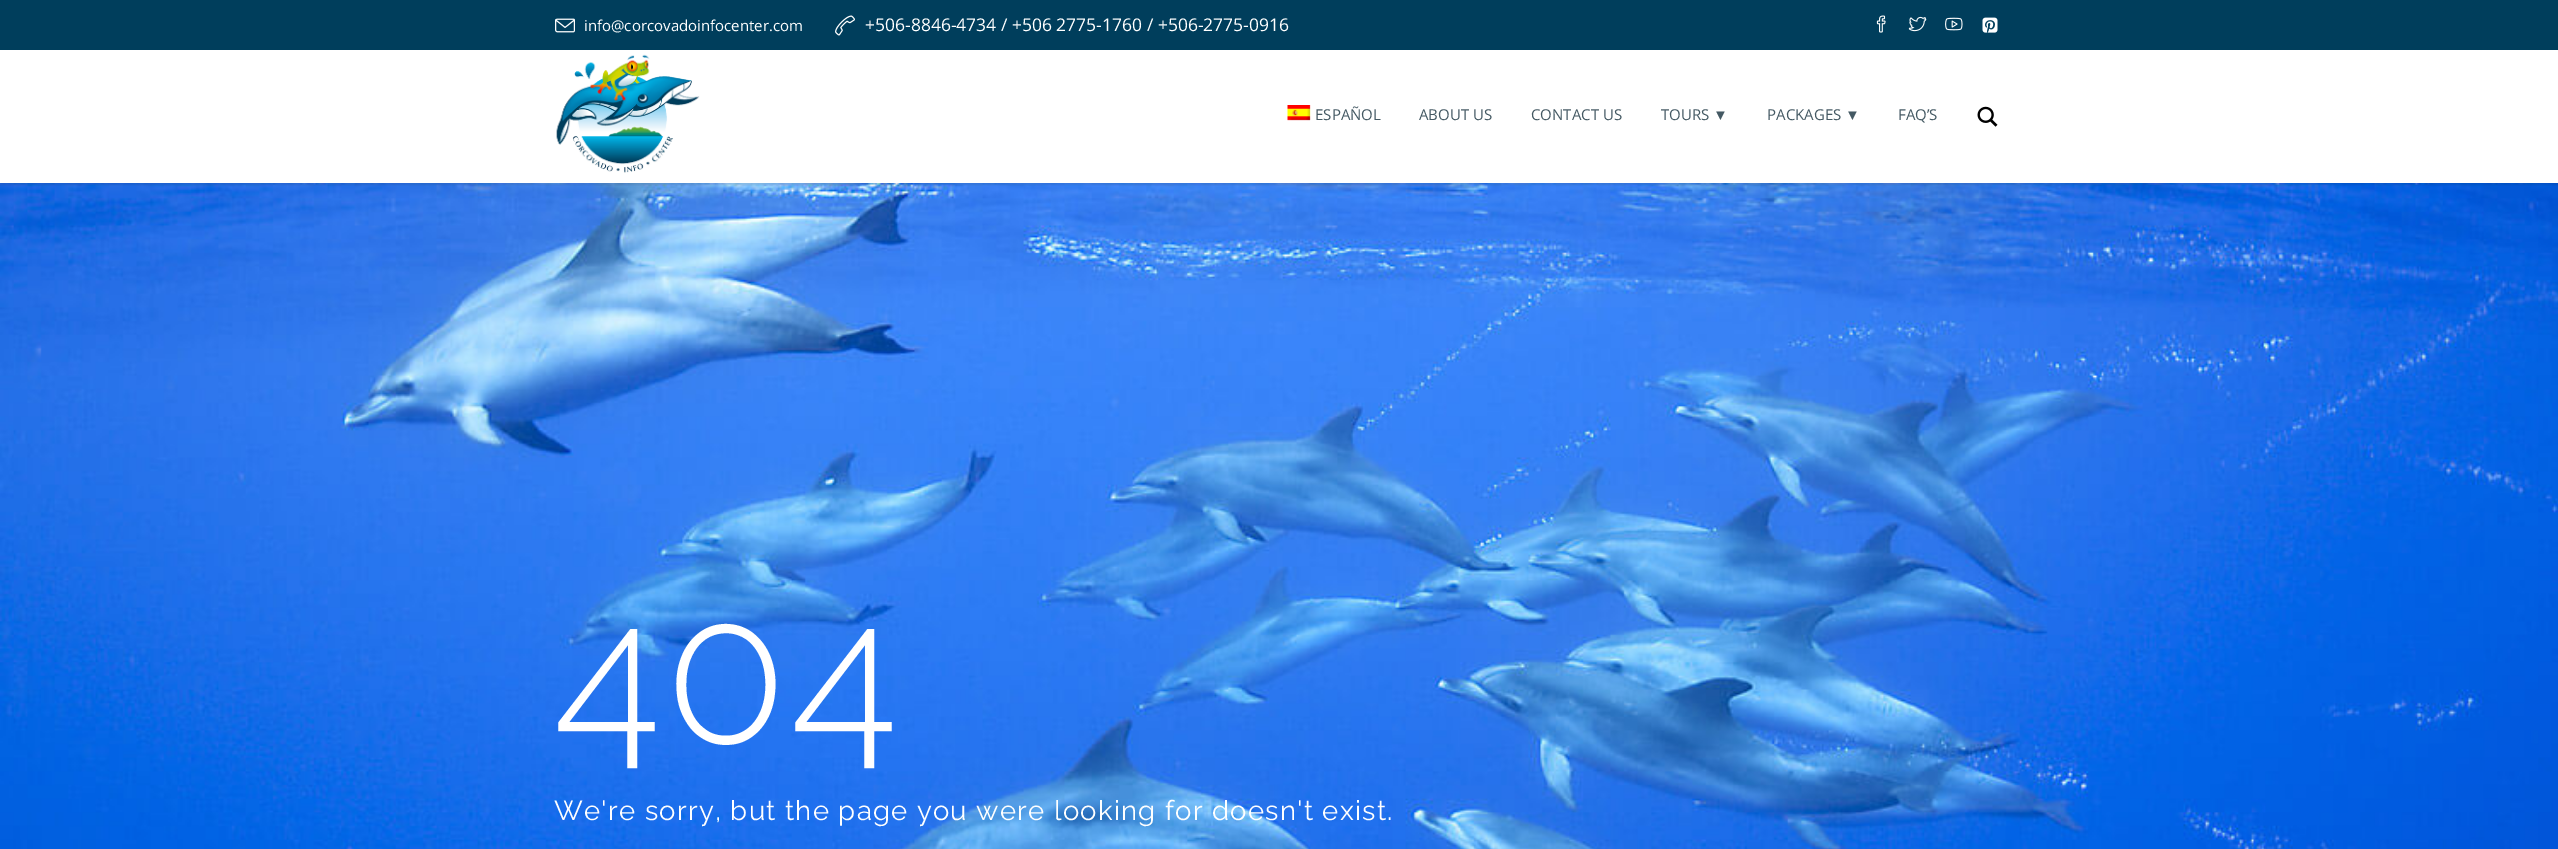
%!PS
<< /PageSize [2558 849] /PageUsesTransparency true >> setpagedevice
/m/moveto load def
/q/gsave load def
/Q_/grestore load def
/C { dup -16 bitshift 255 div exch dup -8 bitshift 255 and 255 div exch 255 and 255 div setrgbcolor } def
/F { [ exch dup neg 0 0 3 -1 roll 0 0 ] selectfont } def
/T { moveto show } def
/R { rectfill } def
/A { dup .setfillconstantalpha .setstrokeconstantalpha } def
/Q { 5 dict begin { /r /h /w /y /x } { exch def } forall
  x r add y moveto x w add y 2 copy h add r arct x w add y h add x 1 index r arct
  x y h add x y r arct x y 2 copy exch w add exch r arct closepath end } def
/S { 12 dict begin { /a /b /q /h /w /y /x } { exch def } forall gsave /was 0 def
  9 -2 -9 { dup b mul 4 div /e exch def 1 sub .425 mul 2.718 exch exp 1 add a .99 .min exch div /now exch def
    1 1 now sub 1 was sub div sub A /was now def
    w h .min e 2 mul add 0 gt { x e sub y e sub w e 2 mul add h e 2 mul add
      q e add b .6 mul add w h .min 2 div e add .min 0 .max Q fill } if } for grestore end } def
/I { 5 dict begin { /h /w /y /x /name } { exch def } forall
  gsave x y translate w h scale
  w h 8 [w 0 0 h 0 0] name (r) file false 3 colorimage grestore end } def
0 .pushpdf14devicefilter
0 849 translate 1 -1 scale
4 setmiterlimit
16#FFFFFF C
0 0 2558 849 R
16#003E5C C
0 0 2558 50 R
(10.rgb) 0 183 2558 666 I
q
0 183 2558 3 rectclip
16#000000 C
0 3 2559 182 0 1 .1 S
Q_
(1.rgb) 555 18 20 15 I
/OpenSans-Regular 15 F
16#FFFFFF C
(info@corcovadoinfocenter.com) 584 31 T
(2.rgb) 835 15 20 21 I
/OpenSans-Regular 17.5 F
(+506-8846-4734 / +506 2775-1760 / +506-2775-0916) 865 31 T
(3.rgb) 1876 15 10 18 I
(4.rgb) 1908 16 19 16 I
(5.rgb) 1945 17 18 14 I
(6.rgb) 1982 17 16 16 I
0 182 2558 1 R
(7.rgb) 556 54 144 119 I
(8.rgb) 1287 105 24 16 I
/OpenSans-Regular 15 F
16#445963 C
(ESPAÑOL) 1315 120 T
(ABOUT US) 1419 120 T
(CONTACT US) 1531 120 T
(TOURS) 1661 120 T
/LiberationSans-Regular 15 F
(▼) 1713 120 T
/OpenSans-Regular 15 F
(PACKAGES) 1767 120 T
/LiberationSans-Regular 15 F
(▼) 1845 120 T
/OpenSans-Regular 15 F
(FAQ’S) 1898 120 T
(9.rgb) 1977 106 21 21 I
/Raleway-Light 200 F
16#FFFFFF C
554 743 m 4 0 (404) ashow
/Raleway-Regular 27.5 F
554 820 m 1.25 0 (We're sorry, but the page you were looking for doesn't exist.) ashow
.poppdf14devicefilter showpage
